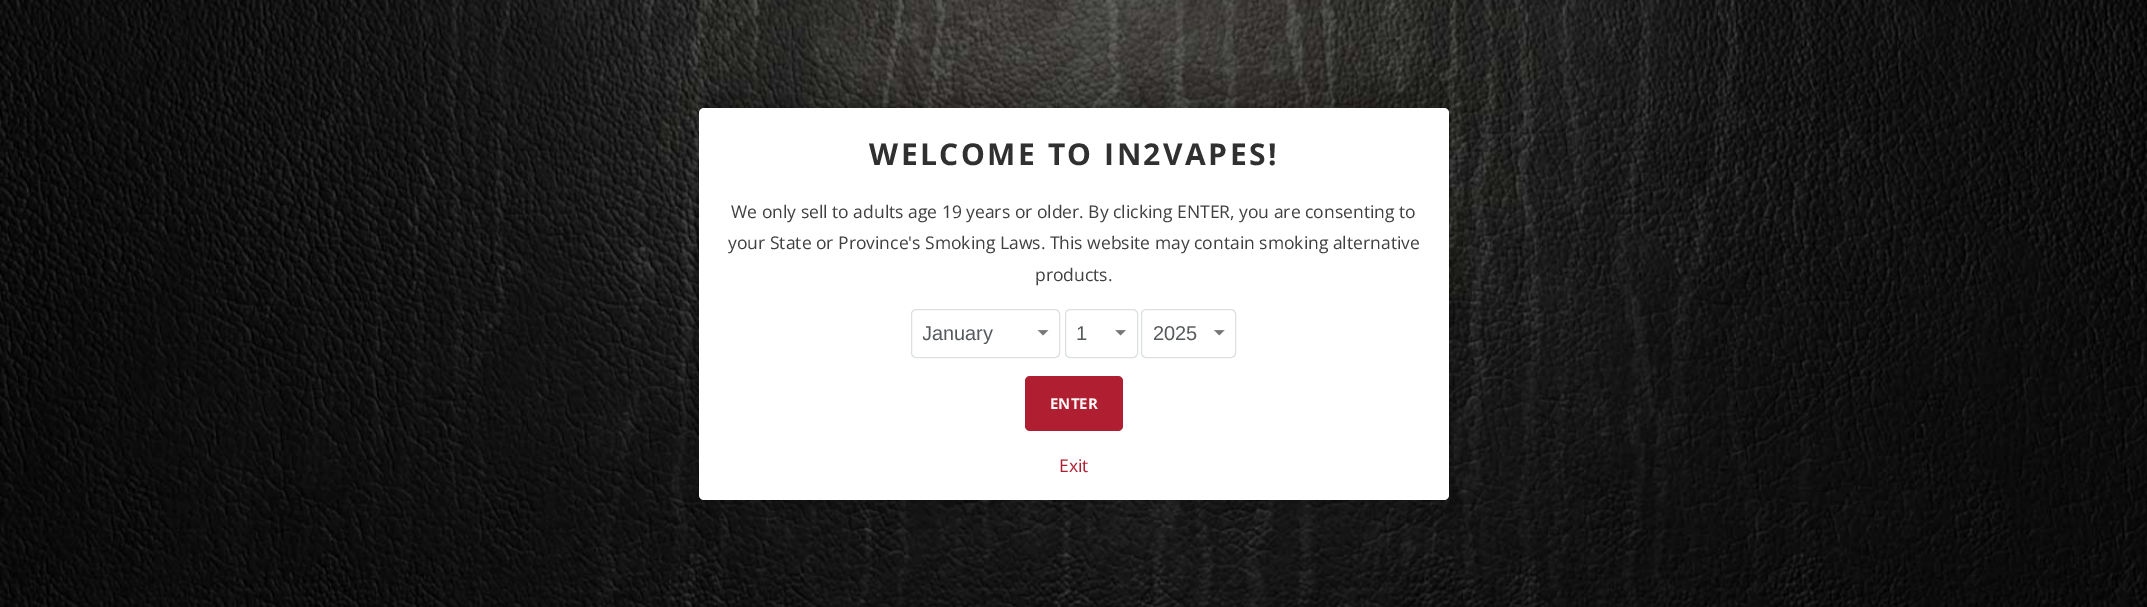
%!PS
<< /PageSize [2147 607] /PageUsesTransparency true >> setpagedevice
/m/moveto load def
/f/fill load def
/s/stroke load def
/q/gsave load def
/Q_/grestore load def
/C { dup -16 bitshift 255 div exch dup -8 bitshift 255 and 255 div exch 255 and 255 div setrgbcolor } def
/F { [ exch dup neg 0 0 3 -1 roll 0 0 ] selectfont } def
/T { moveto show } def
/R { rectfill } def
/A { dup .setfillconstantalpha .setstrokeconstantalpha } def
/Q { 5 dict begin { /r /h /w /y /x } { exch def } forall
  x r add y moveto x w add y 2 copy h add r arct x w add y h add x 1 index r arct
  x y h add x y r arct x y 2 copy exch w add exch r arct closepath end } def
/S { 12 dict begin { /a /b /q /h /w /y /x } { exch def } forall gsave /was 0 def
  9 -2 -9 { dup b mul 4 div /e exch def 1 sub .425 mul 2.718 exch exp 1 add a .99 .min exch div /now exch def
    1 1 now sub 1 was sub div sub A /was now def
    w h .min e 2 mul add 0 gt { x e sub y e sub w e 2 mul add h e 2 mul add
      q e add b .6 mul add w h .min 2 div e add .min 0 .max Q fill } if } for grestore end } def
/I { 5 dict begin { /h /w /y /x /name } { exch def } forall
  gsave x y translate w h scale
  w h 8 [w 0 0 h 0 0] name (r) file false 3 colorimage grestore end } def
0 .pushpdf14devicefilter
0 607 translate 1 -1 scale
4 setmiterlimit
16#FFFFFF C
0 0 2147 607 R
(1.rgb) 0 0 2147 607 I
16#000000 C
699 108 750 392 5 19 .35 S
16#FFFFFF C
699 108 750 392 5 Q f
/OpenSans-Bold 30 F
16#303030 C
869 165 m 2.5 0 (WELCOME TO IN2VAPES!) ashow
/OpenSans-Regular 17.5 F
16#404040 C
(We only sell to adults age 19 years or older. By clicking ENTER, you are consenting to) 731 218 T
(your State or Province's Smoking Laws. This website may contain smoking alternative) 728 249 T
(products.) 1035 281 T
(2.rgb) 1037 330 12 6 I
16#DCE0E0 C
911.5 309.5 148 48 4.5 Q s
q
923 323 98 21 rectclip
/LiberationSans-Regular 20 F
16#565A5C C
(January) 922 340 T
Q_
(3.rgb) 1115 330 11 6 I
1065.5 309.5 72 48 4.5 Q s
/LiberationSans-Regular 20 F
16#565A5C C
(1) 1076 340 T
(4.rgb) 1213 330 12 6 I
16#DCE0E0 C
1141.5 309.5 94 48 4.5 Q s
16#565A5C C
(2025) 1153 340 T
16#AF1F31 C
1025 376 98 55 5 Q f
/OpenSans-Bold 15 F
16#FDF7F7 C
(ENTER) 1050 409 T
/OpenSans-Regular 17.5 F
16#AF1F31 C
(Exit) 1059 472 T
.poppdf14devicefilter showpage
